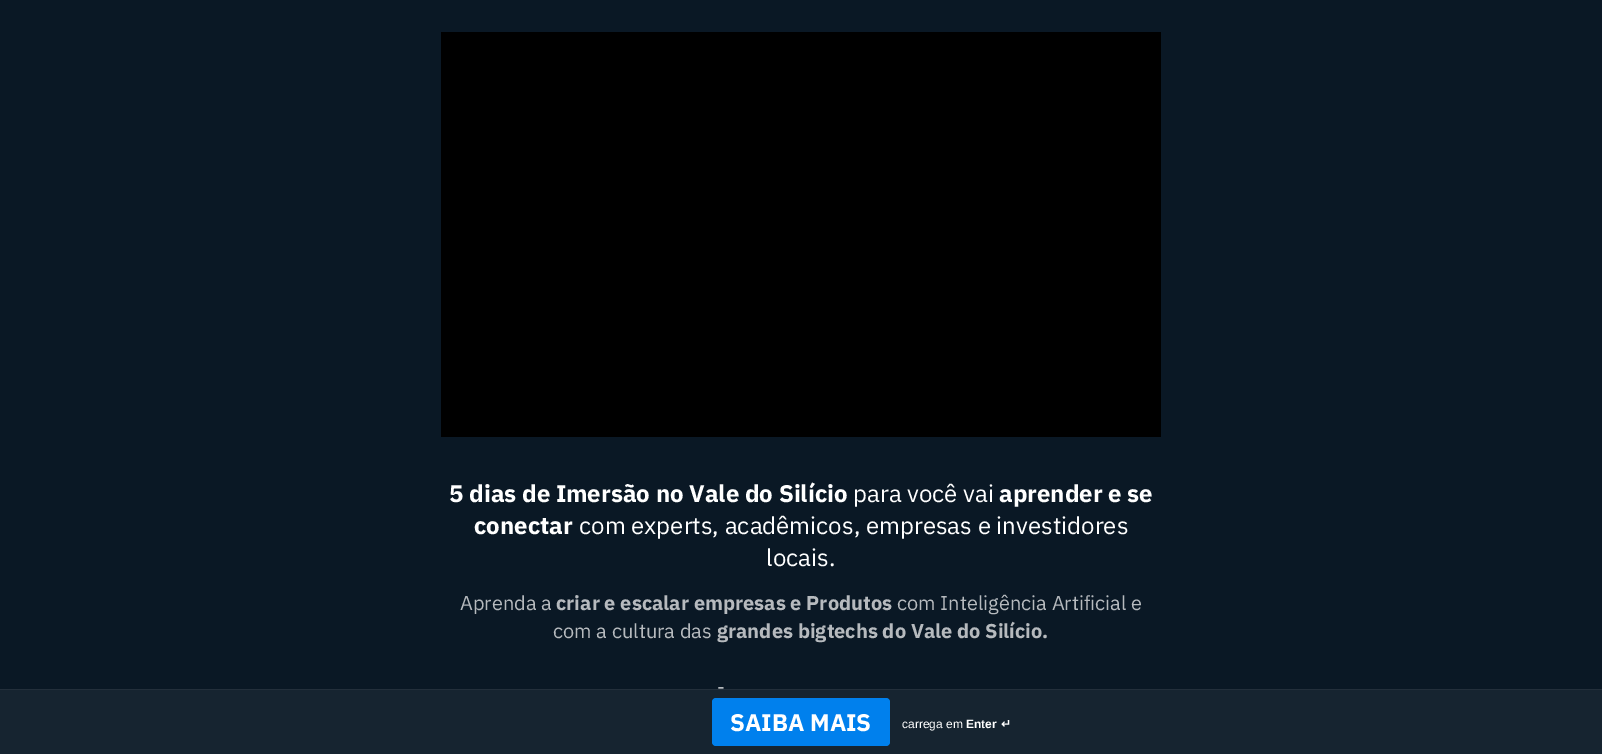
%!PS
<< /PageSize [1602 754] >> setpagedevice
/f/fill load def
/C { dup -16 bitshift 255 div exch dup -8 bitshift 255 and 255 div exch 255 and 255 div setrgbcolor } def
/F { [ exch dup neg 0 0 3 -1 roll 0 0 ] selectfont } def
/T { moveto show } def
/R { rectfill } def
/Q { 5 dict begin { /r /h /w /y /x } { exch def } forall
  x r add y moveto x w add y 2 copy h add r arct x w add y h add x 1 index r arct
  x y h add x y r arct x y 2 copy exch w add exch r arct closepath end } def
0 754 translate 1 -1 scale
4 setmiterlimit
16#0A1825 C
0 0 1602 754 R
16#000000 C
441 32 720 405 R
/IBMPlexSans-Bold 24 F
16#FFFFFF C
(5 dias de Imersão no Vale do Silício) 449 502 T
/IBMPlexSans-Regular 24 F
(para você vai) 853 502 T
/IBMPlexSans-Bold 24 F
(aprender e se) 999 502 T
(conectar) 474 534 T
/IBMPlexSans-Regular 24 F
(com experts, acadêmicos, empresas e investidores) 579 534 T
(locais.) 766 566 T
/IBMPlexSans-Regular 20 F
16#B6BABE C
(Aprenda a) 460 610 T
/IBMPlexSans-Bold 20 F
(criar e escalar empresas e Produtos) 556 610 T
/IBMPlexSans-Regular 20 F
(com Inteligência Artificial e) 897 610 T
(com a cultura das) 553 638 T
/IBMPlexSans-Bold 20 F
(grandes bigtechs do Vale do Silício.) 717 638 T
/IBMPlexSans-Regular 20 F
(-) 717 694 T
16#232F3B C
0 689 1602 1 R
16#162430 C
0 690 1602 64 R
16#0080ED C
712 698 178 48 4 Q f
/IBMPlexSans-Bold 24 F
16#FFFFFF C
(SAIBA MAIS) 730 731 T
/LiberationSans-Regular 12 F
(carrega em) 902 728 T
/LiberationSans-Bold 12 F
(Enter) 966 728 T
/DejaVuSans-Bold 12 F
(↵) 1001 728 T
showpage
